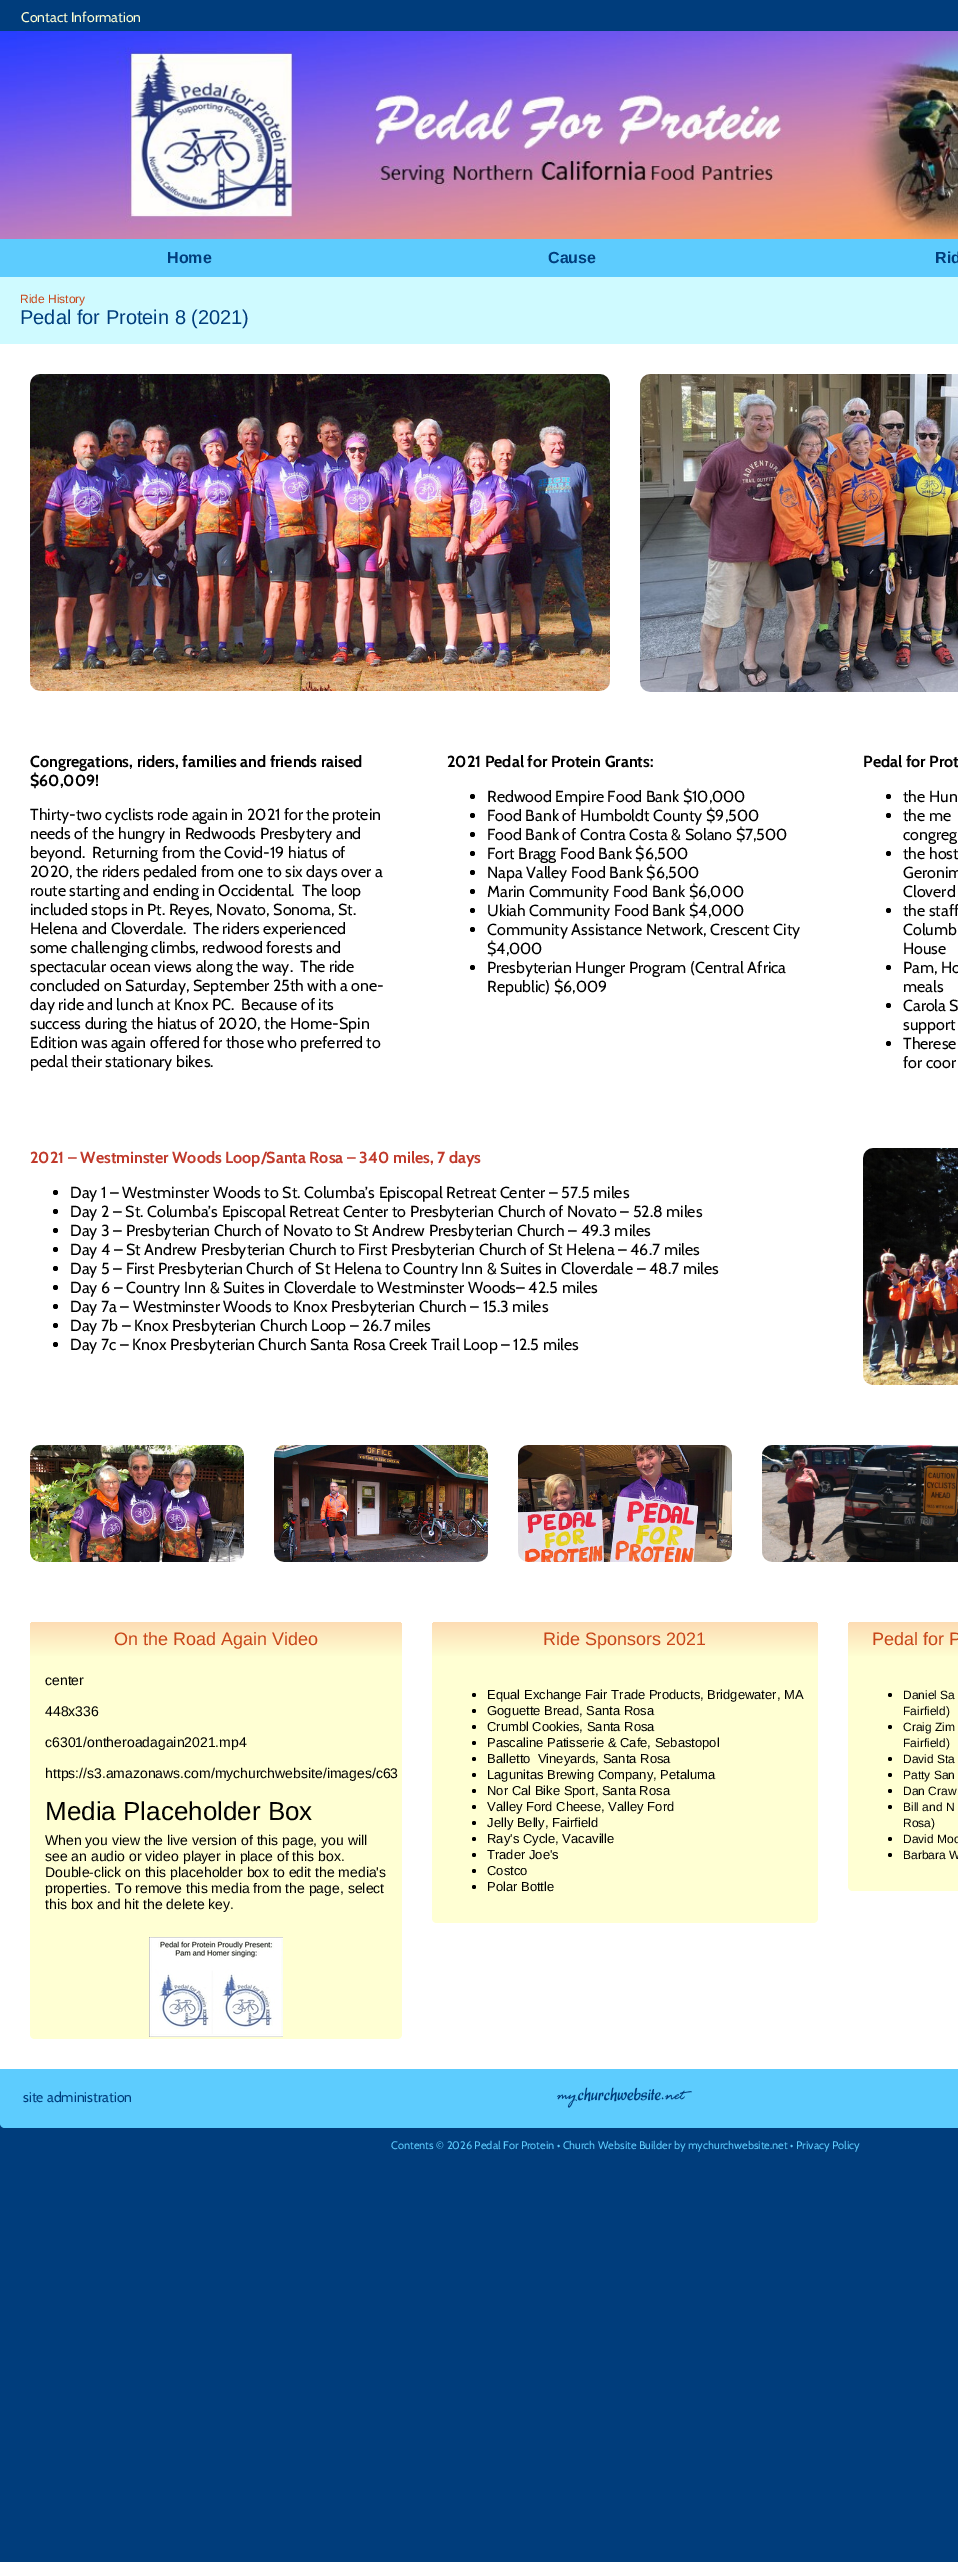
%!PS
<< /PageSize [958 2562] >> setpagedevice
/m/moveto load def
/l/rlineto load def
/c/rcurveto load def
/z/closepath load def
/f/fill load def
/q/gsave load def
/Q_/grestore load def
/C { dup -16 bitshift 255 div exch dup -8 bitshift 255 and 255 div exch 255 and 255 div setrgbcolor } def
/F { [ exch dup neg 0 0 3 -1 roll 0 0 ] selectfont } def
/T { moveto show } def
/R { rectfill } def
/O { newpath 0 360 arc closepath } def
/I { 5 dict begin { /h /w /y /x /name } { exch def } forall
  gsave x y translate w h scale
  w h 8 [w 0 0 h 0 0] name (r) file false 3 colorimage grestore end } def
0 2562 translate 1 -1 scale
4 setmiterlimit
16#003D7C C
0 0 958 2562 R
/Cabin-Regular 14 F
16#FFFFD3 C
(Contact Information) 21 22 T
(1.rgb) 0 31 958 208 I
16#5DCCFE C
0 239 958 38 R
/LiberationSans-Bold 16 F
16#003D7C C
(Home) 167 263 T
(Cause) 548 263 T
(Rid) 935 263 T
16#FFFFFF C
0 344 958 1725 R
16#CFFAFF C
0 277 958 67 R
/LiberationSans-Regular 12 F
16#C84619 C
(Ride History) 20 303 T
/LiberationSans-Regular 20 F
16#003D7C C
(Pedal for Protein 8 \(2021\)) 20 324 T
(2.rgb) 30 374 580 317 I
(3.rgb) 640 374 318 318 I
/Cabin-Bold 16 F
16#000000 C
(Congregations, riders, families and friends raised) 30 767 T
($60,009!) 30 786 T
/Cabin-Regular 16 F
(Thirty-two cyclists rode again in 2021 for the protein) 30 820 T
(needs of the hungry in Redwoods Presbytery and) 30 839 T
(beyond.  Returning from the Covid-19 hiatus of) 30 858 T
(2020, the riders pedaled from one to six days over a) 30 877 T
(route starting and ending in Occidental.  The loop) 30 896 T
(included stops in Pt. Reyes, Novato, Sonoma, St.) 30 915 T
(Helena and Cloverdale.  The riders experienced) 30 934 T
(some challenging climbs, redwood forests and) 30 953 T
(spectacular ocean views along the way.  The ride) 30 972 T
(concluded on Saturday, September 25th with a one-) 30 991 T
(day ride and lunch at Knox PC.  Because of its) 30 1010 T
(success during the hiatus of 2020, the Home-Spin) 30 1029 T
(Edition was again offered for those who preferred to) 30 1048 T
(pedal their stationary bikes.) 30 1067 T
/Cabin-Bold 16 F
(2021 Pedal for Protein Grants:) 447 767 T
472.5 796.5 2.5 O f
/Cabin-Regular 16 F
(Redwood Empire Food Bank $10,000) 487 802 T
472.5 815.5 2.5 O f
(Food Bank of Humboldt County $9,500) 487 821 T
472.5 834.5 2.5 O f
(Food Bank of Contra Costa & Solano $7,500) 487 840 T
472.5 853.5 2.5 O f
(Fort Bragg Food Bank $6,500) 487 859 T
472.5 872.5 2.5 O f
(Napa Valley Food Bank $6,500) 487 878 T
472.5 891.5 2.5 O f
(Marin Community Food Bank $6,000) 487 897 T
472.5 910.5 2.5 O f
(Ukiah Community Food Bank $4,000) 487 916 T
472.5 929.5 2.5 O f
(Community Assistance Network, Crescent City) 487 935 T
($4,000) 487 954 T
472.5 967.5 2.5 O f
(Presbyterian Hunger Program \(Central Africa) 487 973 T
(Republic\) $6,009) 487 992 T
/Cabin-Bold 16 F
(Pedal for Prot) 863 767 T
888.5 796.5 2.5 O f
/Cabin-Regular 16 F
(the Hun) 903 802 T
888.5 815.5 2.5 O f
(the me) 903 821 T
(congreg) 903 840 T
888.5 853.5 2.5 O f
(the host) 903 859 T
(Geronim) 903 878 T
(Cloverd) 903 897 T
888.5 910.5 2.5 O f
(the staff) 903 916 T
(Columb) 903 935 T
(House) 903 954 T
888.5 967.5 2.5 O f
(Pam, Ho) 903 973 T
(meals) 903 992 T
888.5 1005.5 2.5 O f
(Carola S) 903 1011 T
(support) 903 1030 T
888.5 1043.5 2.5 O f
(Therese) 903 1049 T
(for coor) 903 1068 T
/Cabin-Bold 16 F
16#C0392B C
(2021 – Westminster Woods Loop/Santa Rosa – 340 miles, 7 days) 30 1163 T
16#000000 C
55.5 1192.5 2.5 O f
/Cabin-Regular 16 F
(Day 1 – Westminster Woods to St. Columba’s Episcopal Retreat Center – 57.5 miles) 70 1198 T
55.5 1211.5 2.5 O f
(Day 2 – St. Columba’s Episcopal Retreat Center to Presbyterian Church of Novato – 52.8 miles) 70 1217 T
55.5 1230.5 2.5 O f
(Day 3 – Presbyterian Church of Novato to St Andrew Presbyterian Church – 49.3 miles) 70 1236 T
55.5 1249.5 2.5 O f
(Day 4 – St Andrew Presbyterian Church to First Presbyterian Church of St Helena – 46.7 miles) 70 1255 T
55.5 1268.5 2.5 O f
(Day 5 – First Presbyterian Church of St Helena to Country Inn & Suites in Cloverdale – 48.7 miles) 70 1274 T
55.5 1287.5 2.5 O f
(Day 6 – Country Inn & Suites in Cloverdale to Westminster Woods– 42.5 miles) 70 1293 T
55.5 1306.5 2.5 O f
(Day 7a – Westminster Woods to Knox Presbyterian Church – 15.3 miles) 70 1312 T
55.5 1325.5 2.5 O f
(Day 7b – Knox Presbyterian Church Loop – 26.7 miles) 70 1331 T
55.5 1344.5 2.5 O f
(Day 7c – Knox Presbyterian Church Santa Rosa Creek Trail Loop – 12.5 miles) 70 1350 T
(4.rgb) 863 1148 95 237 I
(5.rgb) 30 1445 214 117 I
(6.rgb) 274 1445 214 117 I
(7.rgb) 518 1445 214 117 I
(8.rgb) 762 1445 196 117 I
q 35 1622 m 362 0 l 3 0 5 2 5 5 c 0 30 l -372 0 l 0 -30 l 0 -3 2 -5 5 -5 c z clip newpath
<< /ShadingType 2 /ColorSpace /DeviceRGB /Coords [216 1622 216 1657] /Extend [true true] /Function << /FunctionType 2 /Domain [0 1] /C0 [.992 .863 .702] /C1 [1 1 .827] /N 1 >> >> shfill Q_
/LiberationSans-Regular 18 F
16#C84619 C
(On the Road Again Video) 114 1645 T
16#FFFFD3 C
30 1657 m 372 0 l 0 377 l 0 3 -2 5 -5 5 c -362 0 l -3 0 -5 -2 -5 -5 c z f
/LiberationSans-Regular 14 F
16#000000 C
(center) 45 1685 T
(448x336) 45 1716 T
(c6301/ontheroadagain2021.mp4) 45 1747 T
(https://s3.amazonaws.com/mychurchwebsite/images/c63) 45 1778 T
/LiberationSans-Regular 26 F
(Media Placeholder Box) 45 1820 T
/LiberationSans-Regular 14 F
(When you view the live version of this page, you will) 45 1845 T
(see an audio or video player in place of this box.) 45 1861 T
(Double-click on this placeholder box to edit the media's) 45 1877 T
(properties. To remove this media from the page, select) 45 1893 T
(this box and hit the delete key.) 45 1909 T
(9.rgb) 149 1937 134 100 I
q 437 1622 m 376 0 l 3 0 5 2 5 5 c 0 30 l -386 0 l 0 -30 l 0 -3 2 -5 5 -5 c z clip newpath
<< /ShadingType 2 /ColorSpace /DeviceRGB /Coords [625 1622 625 1657] /Extend [true true] /Function << /FunctionType 2 /Domain [0 1] /C0 [.992 .863 .702] /C1 [1 1 .827] /N 1 >> >> shfill Q_
/LiberationSans-Regular 18 F
16#C84619 C
(Ride Sponsors 2021) 543 1645 T
16#FFFFD3 C
432 1657 m 386 0 l 0 261 l 0 3 -2 5 -5 5 c -376 0 l -3 0 -5 -2 -5 -5 c z f
16#000000 C
474 1695 2 O f
/LiberationSans-Regular 13 F
(Equal Exchange Fair Trade Products, Bridgewater, MA) 487 1699 T
474 1711 2 O f
(Goguette Bread, Santa Rosa) 487 1715 T
474 1727 2 O f
(Crumbl Cookies, Santa Rosa) 487 1731 T
474 1743 2 O f
(Pascaline Patisserie & Cafe, Sebastopol) 487 1747 T
474 1759 2 O f
(Balletto  Vineyards, Santa Rosa) 487 1763 T
474 1775 2 O f
(Lagunitas Brewing Company, Petaluma) 487 1779 T
474 1791 2 O f
(Nor Cal Bike Sport, Santa Rosa) 487 1795 T
474 1807 2 O f
(Valley Ford Cheese, Valley Ford) 487 1811 T
474 1823 2 O f
(Jelly Belly, Fairfield) 487 1827 T
474 1839 2 O f
(Ray's Cycle, Vacaville) 487 1843 T
474 1855 2 O f
(Trader Joe's) 487 1859 T
474 1871 2 O f
(Costco) 487 1875 T
474 1887 2 O f
(Polar Bottle) 487 1891 T
q 853 1622 m 105 0 l 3 0 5 2 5 5 c 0 30 l -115 0 l 0 -30 l 0 -3 2 -5 5 -5 c z clip newpath
<< /ShadingType 2 /ColorSpace /DeviceRGB /Coords [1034 1622 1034 1657] /Extend [true true] /Function << /FunctionType 2 /Domain [0 1] /C0 [.992 .863 .702] /C1 [1 1 .827] /N 1 >> >> shfill Q_
/LiberationSans-Regular 18 F
16#C84619 C
(Pedal for P) 872 1645 T
16#FFFFD3 C
848 1657 m 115 0 l 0 229 l 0 3 -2 5 -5 5 c -105 0 l -3 0 -5 -2 -5 -5 c z f
16#000000 C
890 1695 2 O f
/LiberationSans-Regular 12 F
(Daniel Sa) 903 1699 T
(Fairfield\)) 903 1715 T
890 1727 2 O f
(Craig Zim) 903 1731 T
(Fairfield\)) 903 1747 T
890 1759 2 O f
(David Sta) 903 1763 T
890 1775 2 O f
(Patty San) 903 1779 T
890 1791 2 O f
(Dan Craw) 903 1795 T
890 1807 2 O f
(Bill and N) 903 1811 T
(Rosa\)) 903 1827 T
890 1839 2 O f
(David Moo) 903 1843 T
890 1855 2 O f
(Barbara W) 903 1859 T
16#5DCCFE C
0 2069 m 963 0 l 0 54 l 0 3 -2 5 -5 5 c -953 0 l -3 0 -5 -2 -5 -5 c z f
/Cabin-Regular 14 F
16#003D7C C
(site administration) 23 2102 T
(10.rgb) 557 2087 135 21 I
/Cabin-Regular 11 F
16#5DCCFE C
(Contents © 2026 Pedal For Protein • Church Website Builder by mychurchwebsite.net • Privacy Policy) 391 2149 T
showpage
